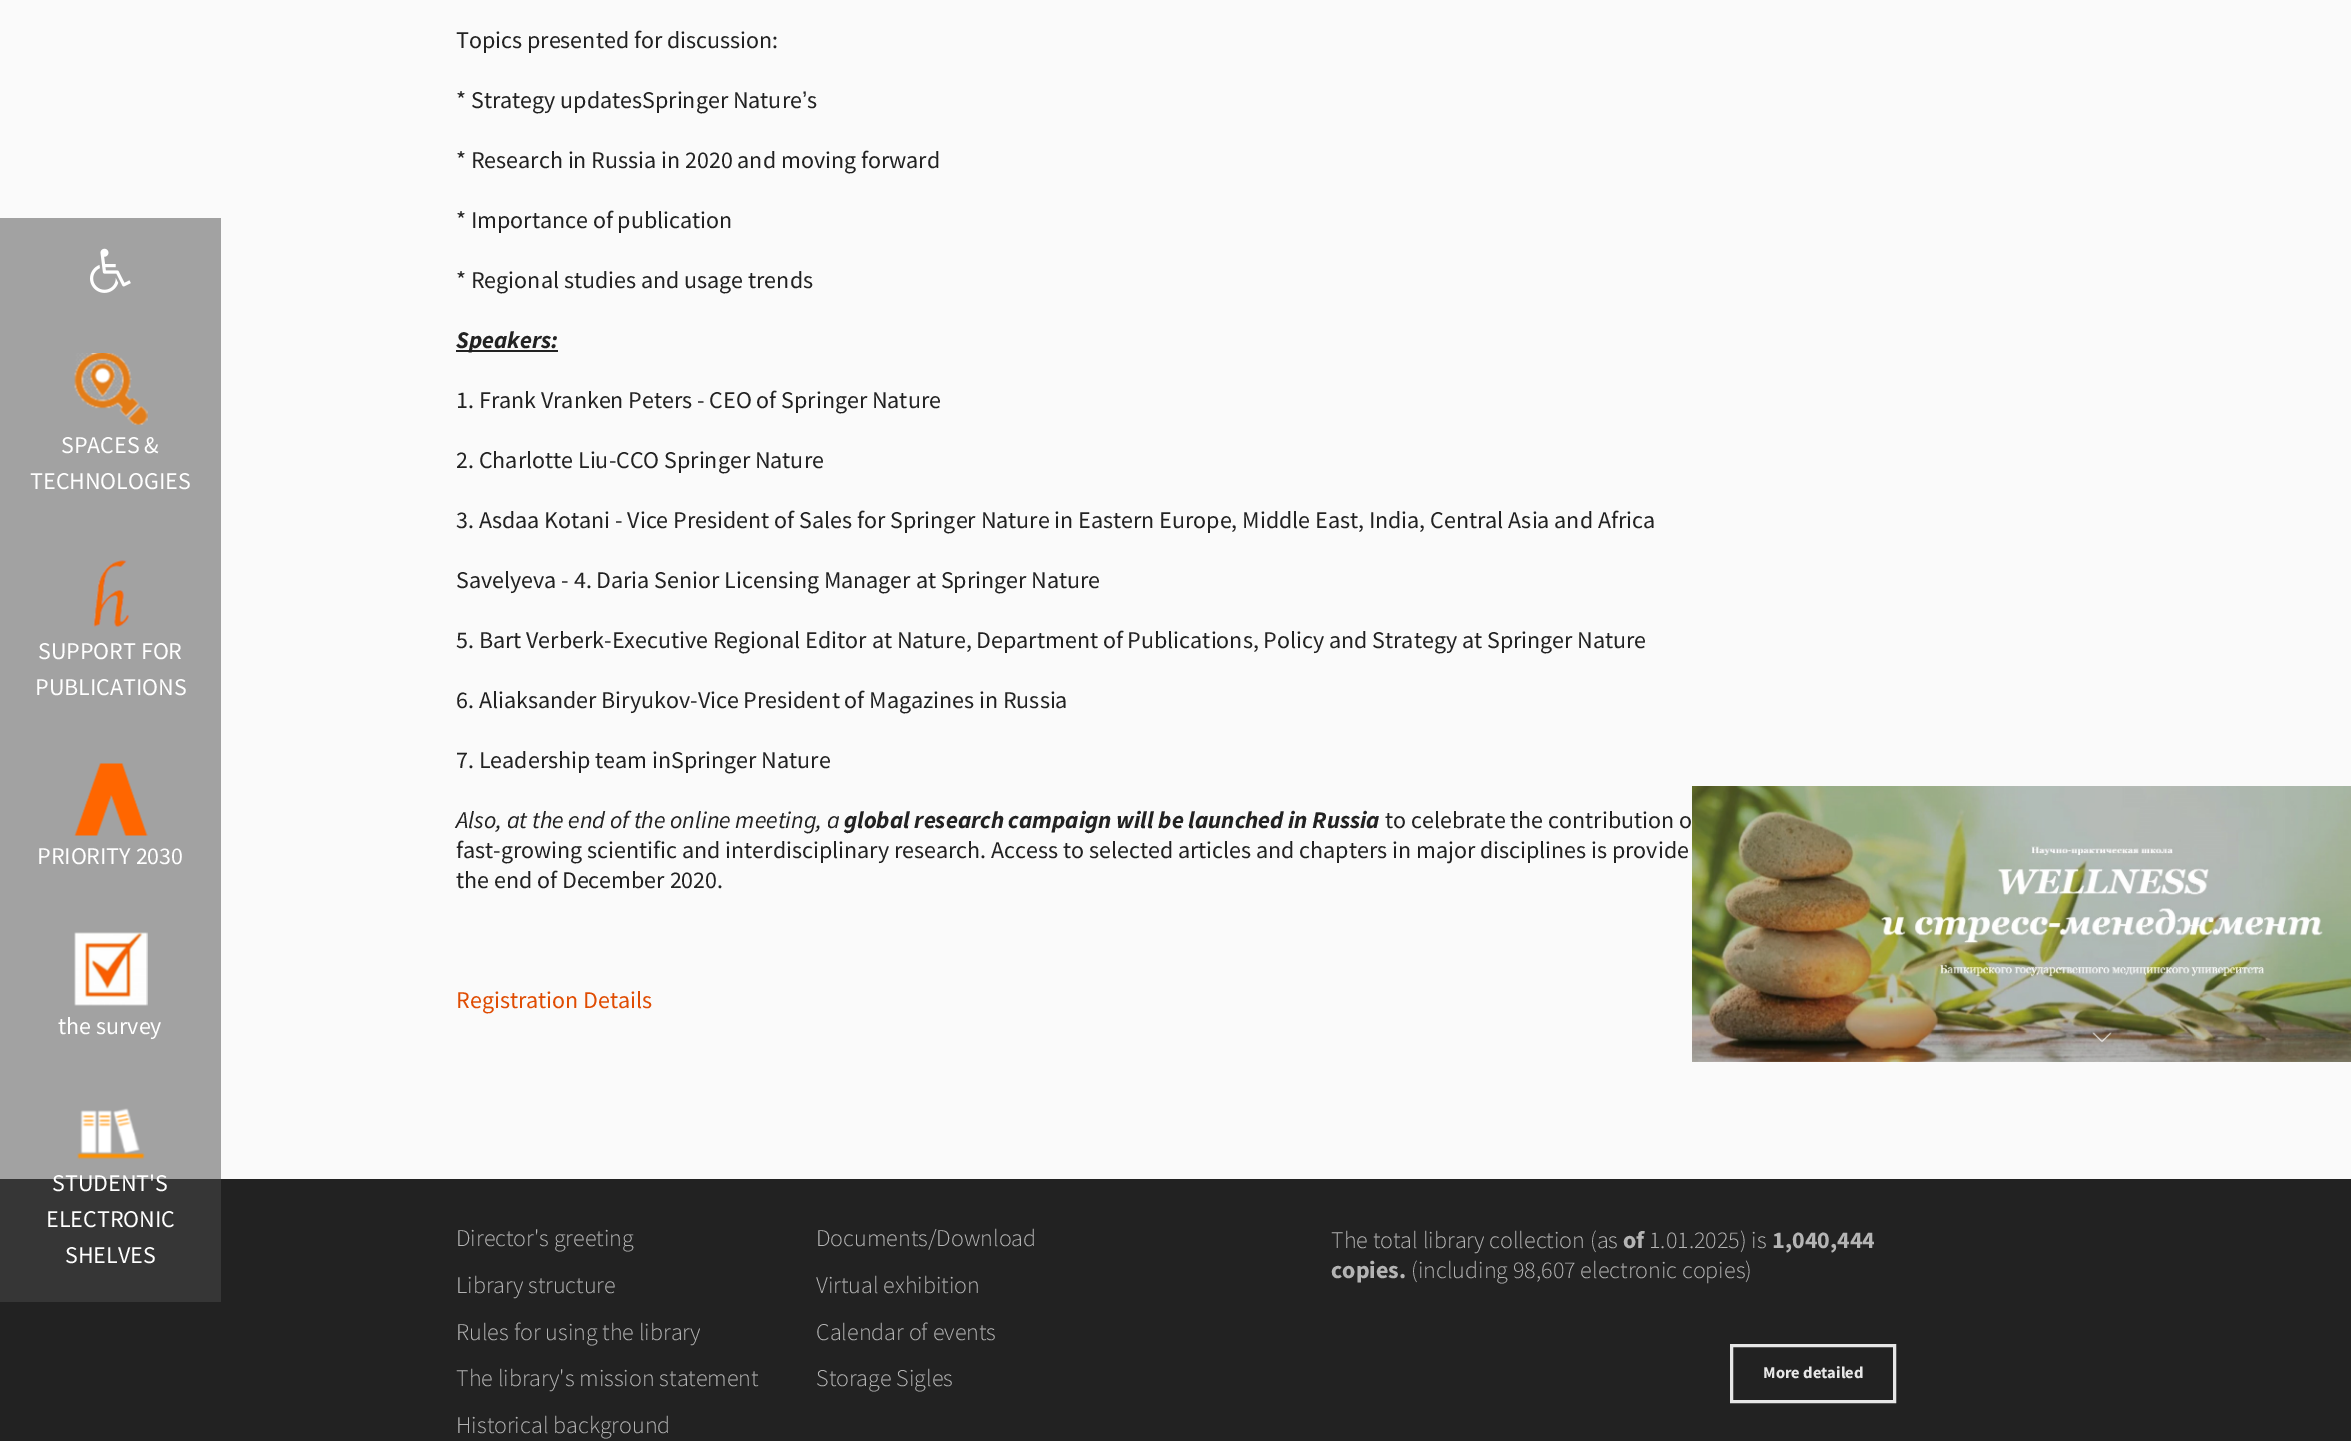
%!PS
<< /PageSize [2351 1441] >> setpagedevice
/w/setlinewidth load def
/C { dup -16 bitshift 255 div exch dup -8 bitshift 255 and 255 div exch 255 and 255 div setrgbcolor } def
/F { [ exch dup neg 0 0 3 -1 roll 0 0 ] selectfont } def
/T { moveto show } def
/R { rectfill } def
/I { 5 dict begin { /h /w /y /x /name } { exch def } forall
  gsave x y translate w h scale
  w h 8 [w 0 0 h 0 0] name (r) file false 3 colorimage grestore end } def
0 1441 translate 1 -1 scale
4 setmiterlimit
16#FAFAFA C
0 0 2351 1441 R
16#A2A2A2 C
0 218 221 961 R
/SourceSansPro-Regular 24 F
16#222222 C
(Topics presented for discussion:) 456 48 T
(* Strategy updatesSpringer Nature) 456 108 T
/LiberationSans-Regular 24 F
(’) 802 108 T
/SourceSansPro-Regular 24 F
(s) 807 108 T
(* Research in Russia in 2020 and moving forward) 456 168 T
(* Importance of publication) 456 228 T
(* Regional studies and usage trends) 456 288 T
456 350 102 2 R
/SourceSansPro-BoldItalic 24 F
(Speakers:) 456 348 T
/SourceSansPro-Regular 24 F
(1. Frank Vranken Peters - CEO of Springer Nature) 456 408 T
(2. Charlotte Liu-CCO Springer Nature) 456 468 T
(3. Asdaa Kotani - Vice President of Sales for Springer Nature in Eastern Europe, Middle East, India, Central Asia and Africa) 456 528 T
(Savelyeva - 4. Daria Senior Licensing Manager at Springer Nature) 456 588 T
(5. Bart Verberk-Executive Regional Editor at Nature, Department of Publications, Policy and Strategy at Springer Nature) 456 648 T
(6. Aliaksander Biryukov-Vice President of Magazines in Russia) 456 708 T
(7. Leadership team inSpringer Nature) 456 768 T
/SourceSansPro-Italic 24 F
(Also, at the end of the online meeting, a) 456 828 T
/SourceSansPro-BoldItalic 24 F
(global research campaign will be launched in Russia) 844 828 T
/SourceSansPro-Regular 24 F
(to celebrate the contribution o) 1385 828 T
(fast-growing scientific and interdisciplinary research. Access to selected articles and chapters in major disciplines is provide) 456 858 T
(the end of December 2020.) 456 888 T
16#E04C02 C
(Registration Details) 456 1008 T
16#222222 C
0 1179 2351 262 R
16#363636 C
0 1179 221 123 R
(1.rgb) 90 248 41 45 I
(2.rgb) 74 353 74 72 I
16#FFFFFF C
(SPACES &) 61 453 T
(TECHNOLOGIES) 30 489 T
(3.rgb) 93 560 36 67 I
(SUPPORT FOR) 38 659 T
(PUBLICATIONS) 35 695 T
(4.rgb) 74 763 74 73 I
(PRIORITY 2030) 37 864 T
(5.rgb) 74 932 74 74 I
(the survey) 58 1034 T
(6.rgb) 77 1108 68 52 I
(STUDENT'S) 52 1191 T
(ELECTRONIC) 46 1227 T
(SHELVES) 65 1263 T
(7.rgb) 1692 786 659 276 I
/SourceSansPro-Light 24 F
16#B4B4B4 C
(Director's greeting) 456 1246 T
(Library structure) 456 1293 T
(Rules for using the library) 456 1340 T
(The library's mission statement) 456 1386 T
(Historical background) 456 1433 T
(Documents/Download) 816 1246 T
(Virtual exhibition) 816 1293 T
(Calendar of events) 816 1340 T
(Storage Sigles) 816 1386 T
(The total library collection \(as) 1331 1248 T
/SourceSansPro-Bold 24 F
(of) 1623 1248 T
/SourceSansPro-Light 24 F
(1.01.2025\) is) 1649 1248 T
/SourceSansPro-Bold 24 F
(1,040,444) 1772 1248 T
(copies.) 1331 1278 T
/SourceSansPro-Light 24 F
(\(including 98,607 electronic copies\)) 1411 1278 T
16#E7E7E7 C
3 w
1731.5 1345.5 163 56 rectstroke
/SourceSansPro-Bold 16.5 F
(More detailed) 1763 1378 T
showpage
